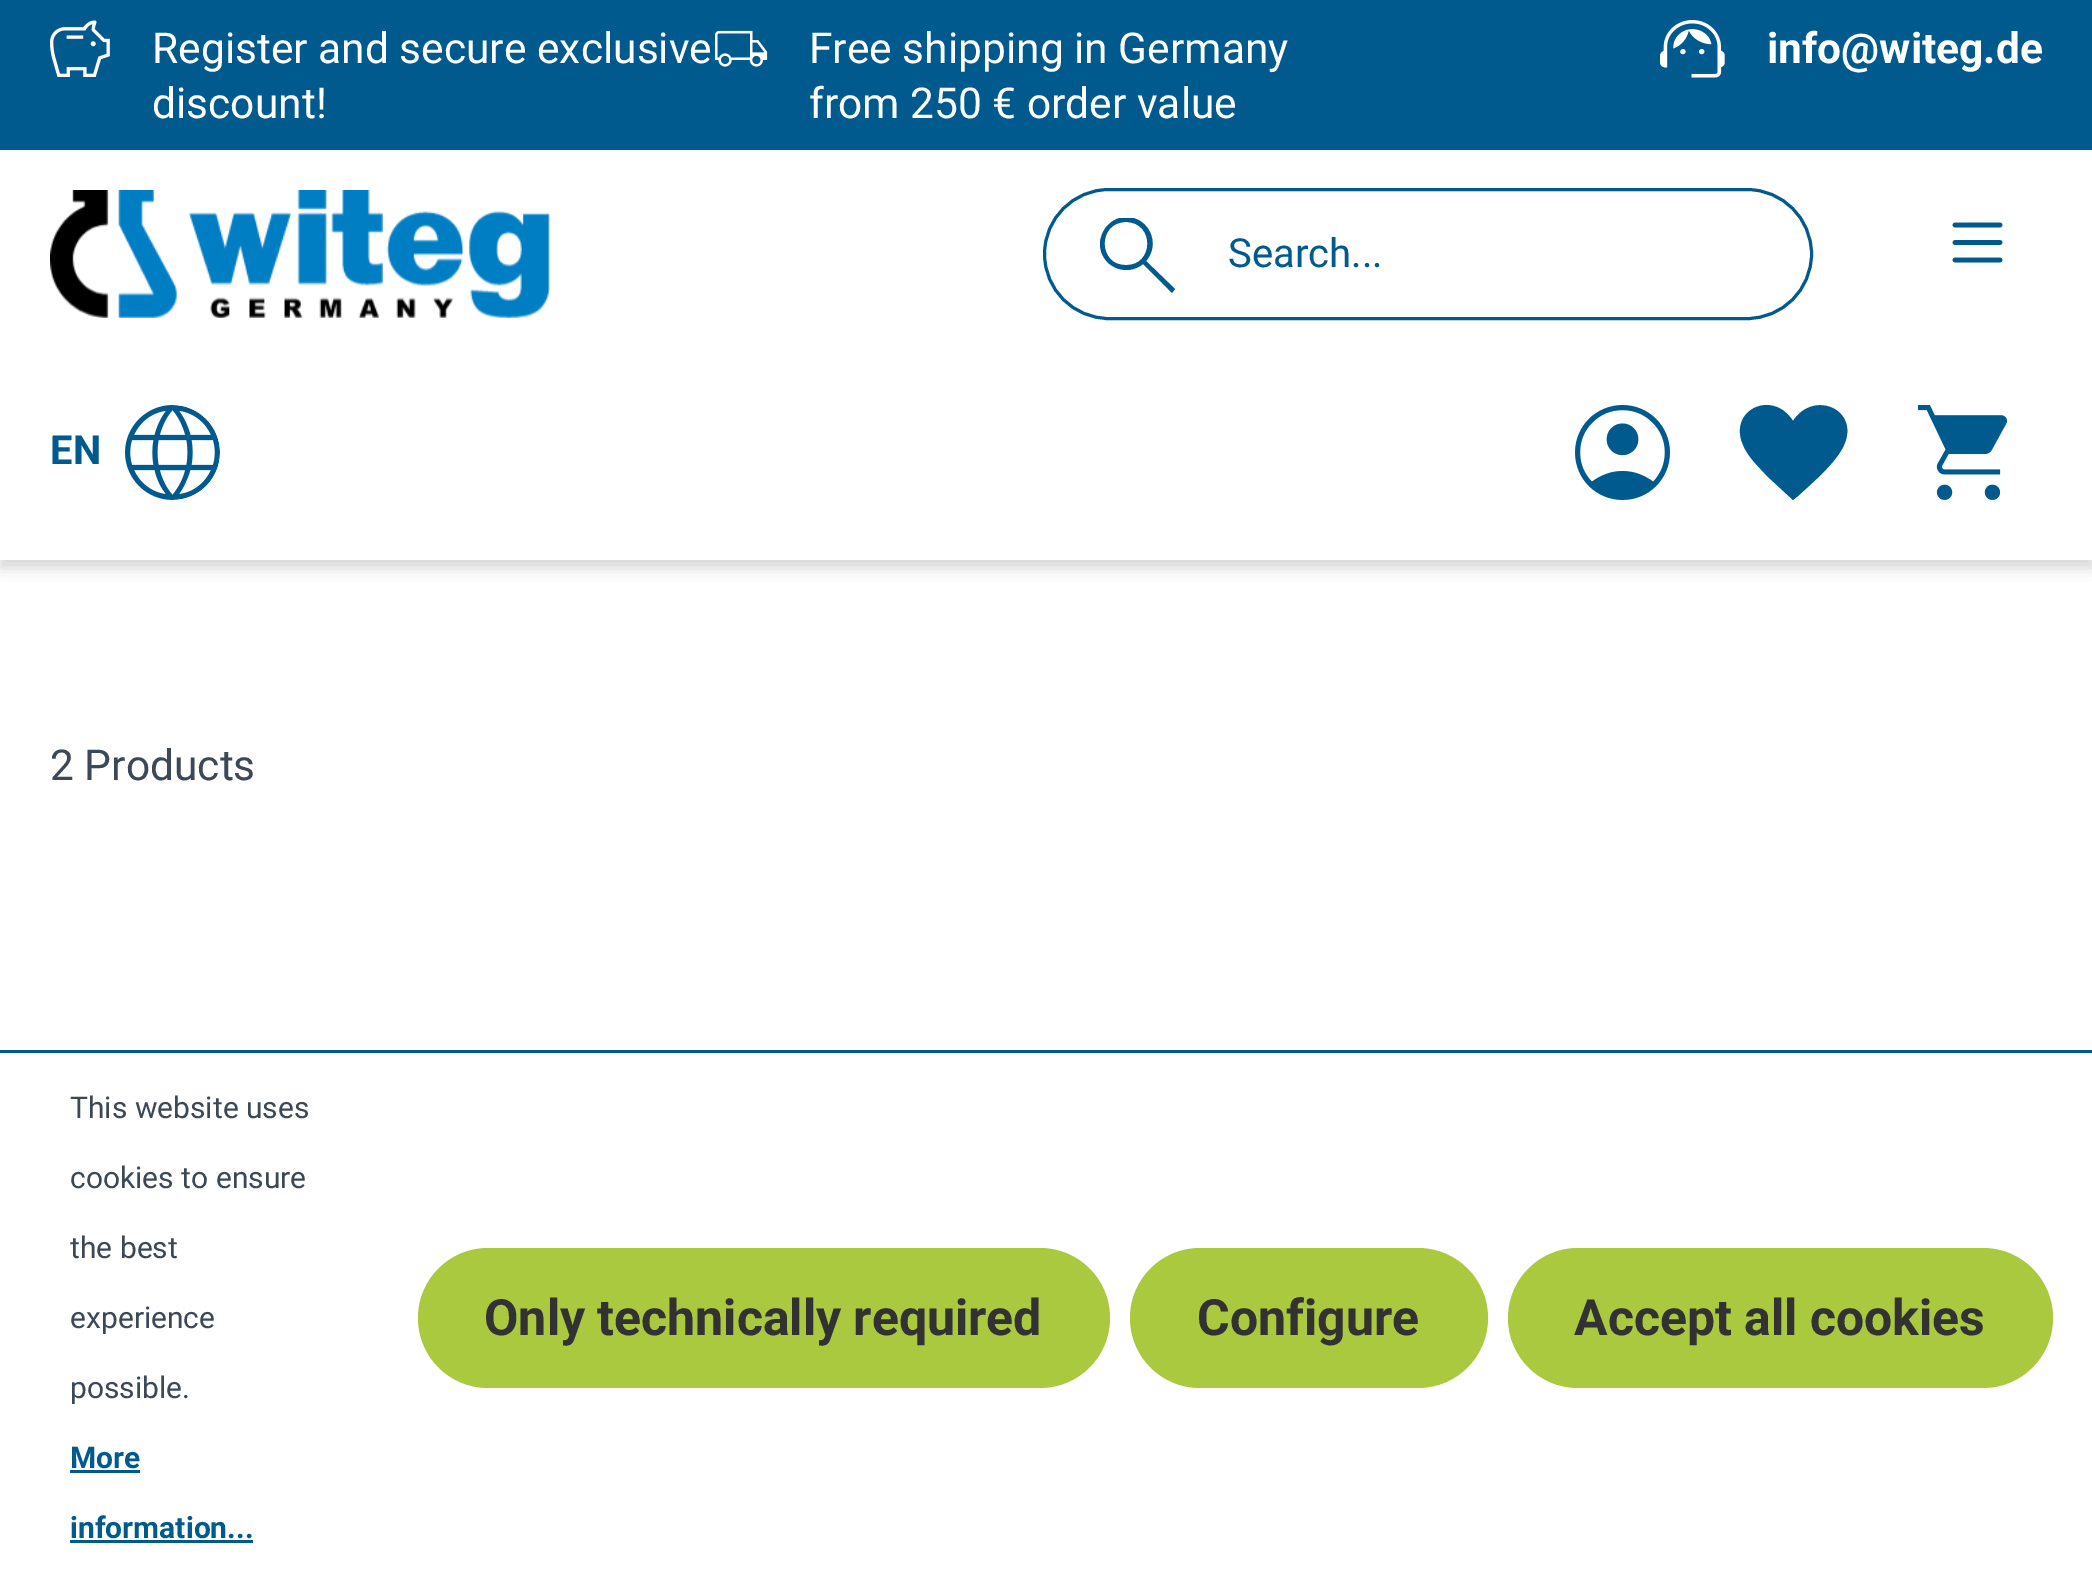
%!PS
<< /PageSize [2092 1581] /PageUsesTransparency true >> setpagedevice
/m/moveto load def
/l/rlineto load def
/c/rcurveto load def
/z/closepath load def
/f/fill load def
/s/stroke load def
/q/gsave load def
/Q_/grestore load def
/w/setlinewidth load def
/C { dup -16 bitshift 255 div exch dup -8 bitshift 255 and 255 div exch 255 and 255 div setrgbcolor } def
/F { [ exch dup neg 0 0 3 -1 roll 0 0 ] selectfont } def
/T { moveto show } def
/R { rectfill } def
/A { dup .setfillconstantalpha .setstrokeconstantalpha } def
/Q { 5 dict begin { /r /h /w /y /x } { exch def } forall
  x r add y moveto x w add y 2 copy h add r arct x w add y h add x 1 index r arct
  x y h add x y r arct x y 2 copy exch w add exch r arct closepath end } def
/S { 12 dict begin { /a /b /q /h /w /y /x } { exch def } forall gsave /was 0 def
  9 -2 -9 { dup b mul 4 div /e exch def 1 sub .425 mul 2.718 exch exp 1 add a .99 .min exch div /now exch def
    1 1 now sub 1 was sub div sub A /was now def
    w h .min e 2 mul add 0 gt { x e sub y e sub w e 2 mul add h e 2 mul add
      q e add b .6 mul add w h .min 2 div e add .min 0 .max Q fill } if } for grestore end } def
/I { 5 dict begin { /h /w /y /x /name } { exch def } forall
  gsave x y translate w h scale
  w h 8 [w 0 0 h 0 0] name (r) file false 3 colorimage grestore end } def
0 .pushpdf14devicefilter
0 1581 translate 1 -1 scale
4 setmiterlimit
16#FFFFFF C
0 0 2092 1581 R
16#000000 C
0 8 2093 560 0 7.5 .16 S
16#FFFFFF C
0 150 2092 410 R
16#005A8D C
0 0 2092 150 R
(1.rgb) 50 20 60 57 I
/Roboto-Regular 42.5 F
16#FFFFFF C
(Register and secure exclusive) 152 63 T
(discount!) 152 118 T
(2.rgb) 715 30 53 37 I
(Free shipping in Germany) 809 63 T
(from 250 € order value) 809 118 T
(3.rgb) 1660 20 65 58 I
/Roboto-Bold 42.5 F
(info@witeg.de) 1767 63 T
(4.rgb) 50 190 500 128 I
16#005A8D C
3 w
1044.5 189.5 767 129 64.5 Q s
q
1100 218 75 75 rectclip
1172 293 m -29 -29 l -17 14 -43 2 -43 -20 c 0 -7 3 -14 8 -19 c 5 -5 11 -8 18 -8 c 23 0 35 27 20 44 c 29 28 l z 1126 265 m 28 1 29 -43 0 -43 c -29 0 -28 44 0 43 c z f
Q_
/Roboto-Regular 40 F
(Search...) 1228 267 T
(5.rgb) 1952 222 51 41 I
q
50 405 170 95 47.5 Q clip newpath
/Roboto-Bold 40 F
(EN) 50 464 T
Q_
(6.rgb) 125 405 95 95 I
(7.rgb) 1575 405 95 95 I
1793 500 m -26 -24 l -8 -9 -18 -18 -23 -29 c -18 -36 28 -59 49 -26 c 21 -32 67 -11 51 24 c -8 18 -32 38 -46 51 c z f
(8.rgb) 1918 405 90 95 I
/Roboto-Regular 42.5 F
16#3C4856 C
(2 Products) 50 780 T
16#005A8D C
0 1050 2092 3 R
/Roboto-Regular 30 F
16#3C4856 C
(This website uses) 70 1118 T
(cookies to ensure) 70 1188 T
(the best) 70 1258 T
(experience) 70 1328 T
(possible.) 70 1398 T
/Roboto-Bold 30 F
16#005A8D C
(More) 70 1468 T
70 1470 70 3 R
(information...) 70 1538 T
70 1540 183 3 R
16#AAC93E C
418 1248 692 140 70 Q f
/Roboto-Bold 50 F
16#323232 C
(Only technically required) 484 1335 T
16#AAC93E C
1130 1248 358 140 70 Q f
16#323232 C
(Configure) 1197 1335 T
16#AAC93E C
1508 1248 545 140 70 Q f
16#323232 C
(Accept all cookies) 1574 1335 T
.poppdf14devicefilter showpage
